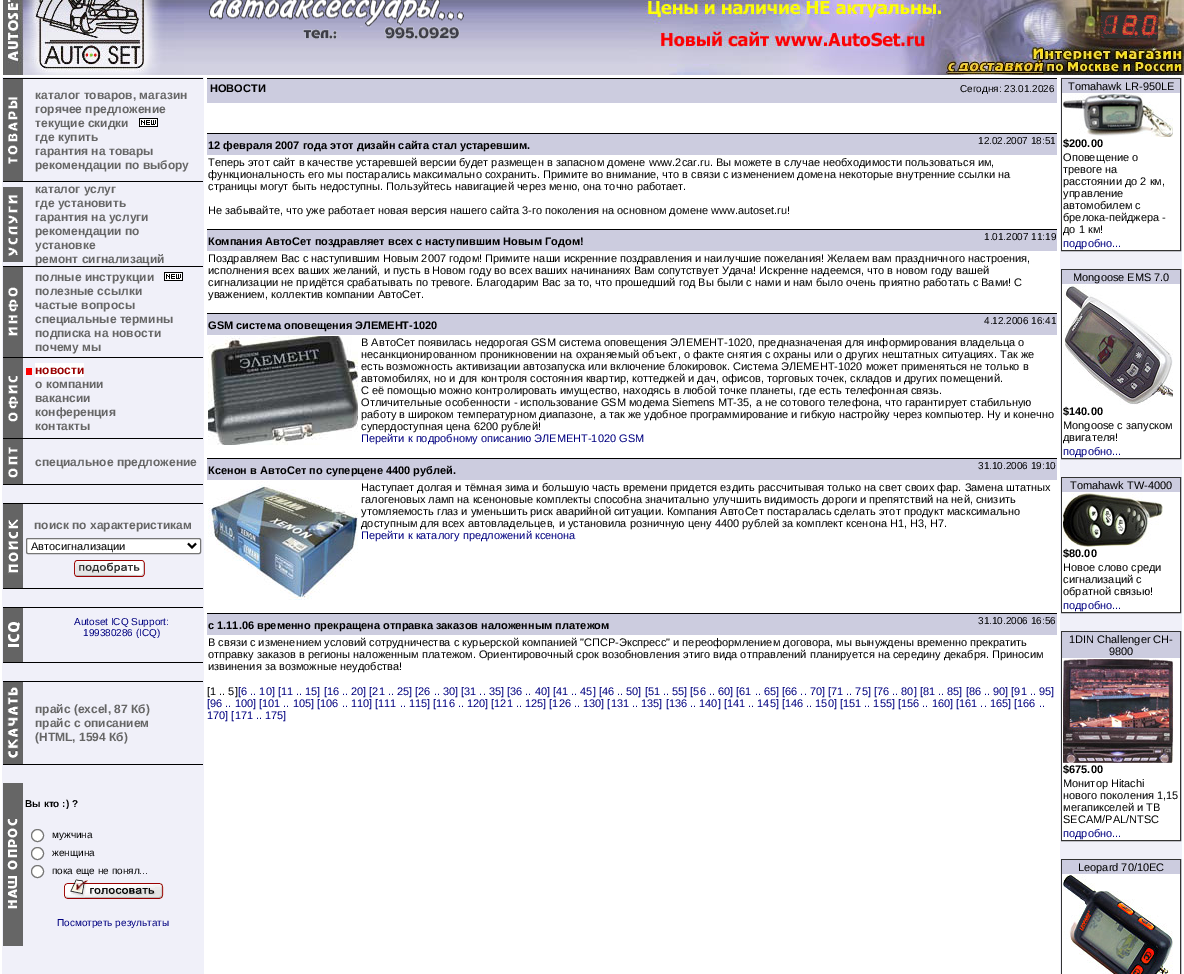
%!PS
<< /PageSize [1184 974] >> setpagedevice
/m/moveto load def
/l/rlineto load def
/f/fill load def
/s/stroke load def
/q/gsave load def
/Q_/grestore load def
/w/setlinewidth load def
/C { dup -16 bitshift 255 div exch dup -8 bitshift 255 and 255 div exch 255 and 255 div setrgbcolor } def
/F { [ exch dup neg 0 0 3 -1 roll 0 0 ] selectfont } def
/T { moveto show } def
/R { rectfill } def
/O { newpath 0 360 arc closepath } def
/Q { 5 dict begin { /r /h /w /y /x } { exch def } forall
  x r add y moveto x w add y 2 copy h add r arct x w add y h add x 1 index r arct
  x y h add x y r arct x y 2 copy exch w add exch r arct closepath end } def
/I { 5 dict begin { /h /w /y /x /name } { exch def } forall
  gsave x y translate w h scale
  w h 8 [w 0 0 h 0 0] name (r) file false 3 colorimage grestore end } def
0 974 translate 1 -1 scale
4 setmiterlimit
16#FFFFFF C
0 0 1184 974 R
(1.rgb) 184 0 31 75 I
(2.rgb) 0 0 184 75 I
(3.rgb) 215 0 414 75 I
(4.rgb) 629 0 316 75 I
(5.rgb) 945 0 156 38 I
(6.rgb) 1101 0 83 12 I
(7.rgb) 1101 12 57 26 I
(8.rgb) 1158 12 26 26 I
(9.rgb) 945 38 156 37 I
(10.rgb) 1101 38 83 37 I
(11.rgb) 209 0 255 40 I
16#F0F0F9 C
2 77 202 897 R
16#000000 C
3 78 200 1 R
(12.rgb) 3 79 20 102 I
/LiberationSans-Bold 12 F
16#666666 C
(каталог товаров, магазин) 35 99 T
(горячее предложение) 35 113 T
(текущие скидки) 35 127 T
(13.rgb) 139 118 19 9 I
(где купить) 35 141 T
(гарантия на товары) 35 155 T
(рекомендации по выбору) 35 169 T
16#000000 C
3 181 200 1 R
(14.rgb) 3 187 20 75 I
16#666666 C
(каталог услуг) 35 193 T
(где установить) 35 207 T
(гарантия на услуги) 35 221 T
(рекомендации по) 35 235 T
(установке) 35 249 T
(ремонт сигнализаций) 35 263 T
16#000000 C
3 266 200 1 R
(15.rgb) 3 267 20 90 I
16#666666 C
(полные инструкции) 35 281 T
(13.rgb) 164 272 19 9 I
(полезные ссылки) 35 295 T
(частые вопросы) 35 309 T
(специальные термины) 35 323 T
(подписка на новости) 35 337 T
(почему мы) 35 351 T
16#000000 C
3 357 200 1 R
(16.rgb) 3 358 20 80 I
16#FF0000 C
26 368 6 7 R
16#FFFFFF C
35 363 49 14 R
16#990000 C
(новости) 35 374 T
16#666666 C
(о компании) 35 388 T
(вакансии) 35 402 T
(конференция) 35 416 T
(контакты) 35 430 T
16#000000 C
3 438 200 1 R
(17.rgb) 3 439 20 45 I
16#666666 C
(специальное предложение) 35 466 T
16#000000 C
3 484 200 1 R
3 503 200 1 R
(18.rgb) 3 504 20 84 I
16#666666 C
(поиск по характеристикам) 34 529 T
16#FFFFFF C
26.5 538.5 174 15 1.5 Q q f Q_
16#767676 C
s
16#000000 C
2 w
188 543.5 m 4 4 l 4 -4 l s
/LiberationSans-Regular 11 F
(Автосигнализации) 31 550 T
(19.rgb) 74 560 71 17 I
3 588 200 1 R
3 607 200 1 R
(20.rgb) 3 608 20 54 I
/LiberationSans-Regular 10 F
16#000080 C
(Autoset ICQ Support:) 74 625 T
(199380286 \(ICQ\)) 83 636 T
16#000000 C
3 662 200 1 R
3 681 200 1 R
(21.rgb) 3 682 20 82 I
/LiberationSans-Bold 12 F
16#666666 C
(прайс \(excel, 87 Кб\)) 35 713 T
(прайс с описанием) 35 727 T
(\(HTML, 1594 Кб\)) 35 741 T
16#000000 C
3 764 200 1 R
16#666666 C
3 783 20 163 R
(22.rgb) 7 819 11 90 I
/LiberationSans-Bold 10 F
16#000000 C
(Вы кто :\) ?) 25 807 T
16#FFFFFF C
37.5 835.5 6 O q f Q_
16#767676 C
1 w
s
/LiberationSans-Regular 10 F
16#000000 C
(мужчина) 52 838 T
16#FFFFFF C
37.5 853.5 6 O q f Q_
16#767676 C
s
16#000000 C
(женщина) 52 856 T
16#FFFFFF C
37.5 871.5 6 O q f Q_
16#767676 C
s
16#000000 C
(пока еще не понял...) 52 874 T
(23.rgb) 63 879 101 20 I
16#000080 C
(Посмотреть результаты) 57 926 T
16#000000 C
207 78 850 1 R
16#CCCCDF C
207 79 850 24 R
/LiberationSans-Bold 11 F
16#000000 C
(НОВОСТИ) 210 92 T
/LiberationSans-Regular 10 F
(Сегодня: 23.01.2026) 960 92 T
207 133 850 1 R
16#CCCCDF C
207 134 850 21 R
/LiberationSans-Bold 11 F
16#000000 C
(12 февраля 2007 года этот дизайн сайта стал устаревшим.) 208 149 T
/LiberationSans-Regular 10 F
(12.02.2007 18:51) 978 144 T
/LiberationSans-Regular 11 F
(Теперь этот сайт в качестве устаревшей версии будет размещен в запасном домене www.2car.ru. Вы можете в случае необходимости пользоваться им,) 208 166 T
(функциональность его мы постарались максимально сохранить. Примите во внимание, что в связи с изменением домена некоторые внутренние ссылки на) 208 178 T
(страницы могут быть недоступны. Пользуйтесь навигацией через меню, она точно работает.) 208 190 T
(Не забывайте, что уже работает новая версия нашего сайта 3-го поколения на основном домене www.autoset.ru!) 208 214 T
207 229 850 1 R
16#CCCCDF C
207 230 850 21 R
/LiberationSans-Bold 11 F
16#000000 C
(Компания АвтоСет поздравляет всех с наступившим Новым Годом!) 208 245 T
/LiberationSans-Regular 10 F
(1.01.2007 11:19) 984 240 T
/LiberationSans-Regular 11 F
(Поздравляем Вас с наступившим Новым 2007 годом! Примите наши искренние поздравления и наилучшие пожелания! Желаем вам праздничного настроения,) 208 262 T
(исполнения всех ваших желаний, и пусть в Новом году во всех ваших начинаниях Вам сопутствует Удача! Искренне надеемся, что в новом году вашей) 208 274 T
(сигнализации не придётся срабатывать по тревоге. Благодарим Вас за то, что прошедший год Вы были с нами и нам было очень приятно работать с Вами! С) 208 286 T
(уважением, коллектив компании АвтоСет.) 208 298 T
207 313 850 1 R
16#CCCCDF C
207 314 850 21 R
/LiberationSans-Bold 11 F
16#000000 C
(GSM система оповещения ЭЛЕМЕНТ-1020) 208 329 T
/LiberationSans-Regular 10 F
(4.12.2006 16:41) 984 324 T
(24.rgb) 208 336 150 109 I
/LiberationSans-Regular 11 F
(В АвтоСет появилась недорогая GSM система оповещения ЭЛЕМЕНТ-1020, предназначеная для информирования владельца о) 361 346 T
(несанкционированном проникновении на охраняемый объект, о факте снятия с охраны или о других нештатных ситуациях. Так же) 361 358 T
(есть возможность активизации автозапуска или включение блокировок. Система ЭЛЕМЕНТ-1020 может применяться не только в) 361 370 T
(автомобилях, но и для контроля состояния квартир, коттеджей и дач, офисов, торговых точек, складов и других помещений.) 361 382 T
(С её помощью можно контролировать имущество, находясь в любой точке планеты, где есть телефонная связь.) 361 394 T
(Отличительные особенности - использование GSM модема Siemens MT-35, а не сотового телефона, что гарантирует стабильную) 361 406 T
(работу в широком температурном диапазоне, а так же удобное программирование и гибкую настройку через компьютер. Ну и конечно) 361 418 T
(супердоступная цена 6200 рублей!) 361 430 T
16#000080 C
(Перейти к подробному описанию ЭЛЕМЕНТ-1020 GSM) 361 442 T
16#000000 C
207 458 850 1 R
16#CCCCDF C
207 459 850 21 R
/LiberationSans-Bold 11 F
16#000000 C
(Ксенон в АвтоСет по суперцене 4400 рублей.) 208 474 T
/LiberationSans-Regular 10 F
(31.10.2006 19:10) 978 469 T
(25.rgb) 208 481 150 119 I
/LiberationSans-Regular 11 F
(Наступает долгая и тёмная зима и большую часть времени придется ездить рассчитывая только на свет своих фар. Замена штатных) 361 491 T
(галогеновых ламп на ксеноновые комплекты способна значитально улучшить видимость дороги и препятствий на ней, снизить) 361 503 T
(утомляемость глаз и уменьшить риск аварийной ситуации. Компания АвтоСет постаралась сделать этот продукт масксимально) 361 515 T
(доступным для всех автовладельцев, и установила розничную цену 4400 рублей за комплект ксенона Н1, Н3, Н7.) 361 527 T
16#000080 C
(Перейти к каталогу предложений ксенона) 361 539 T
16#000000 C
207 613 850 1 R
16#CCCCDF C
207 614 850 21 R
/LiberationSans-Bold 11 F
16#000000 C
(с 1.11.06 временно прекращена отправка заказов наложенным платежом) 208 629 T
/LiberationSans-Regular 10 F
(31.10.2006 16:56) 978 624 T
/LiberationSans-Regular 11 F
(В связи с изменением условий сотрудничества с курьерской компанией "СПСР-Экспресс" и переоформлением договора, мы вынуждены временно прекратить) 208 646 T
(отправку заказов в регионы наложенным платежом. Ориентировочный срок возобновления этиго вида отправлений планируется на середину декабря. Приносим) 208 658 T
(извинения за возможные неудобства!) 208 670 T
([1 .. 5]) 207 695 T
16#000080 C
([6 .. 10] [11 .. 15] [16 .. 20] [21 .. 25] [26 .. 30] [31 .. 35] [36 .. 40] [41 .. 45] [46 .. 50] [51 .. 55] [56 .. 60] [61 .. 65] [66 .. 70] [71 .. 75] [76 .. 80] [81 .. 85] [86 .. 90] [91 .. 95]) 238 695 T
([96 .. 100] [101 .. 105] [106 .. 110] [111 .. 115] [116 .. 120] [121 .. 125] [126 .. 130] [131 .. 135] [136 .. 140] [141 .. 145] [146 .. 150] [151 .. 155] [156 .. 160] [161 .. 165] [166 ..) 207 707 T
(170] [171 .. 175]) 207 719 T
16#F0F0F9 C
1060 77 122 897 R
16#333333 C
1061.5 78.5 119 172 rectstroke
16#CCCCDF C
1062 79 118 14 R
16#000000 C
(Tomahawk LR-950LE) 1068 90 T
16#FFFFFF C
1062 93 118 157 R
(26.rgb) 1063 94 110 43 I
/LiberationSans-Bold 11 F
16#000000 C
($200.00) 1063 147 T
/LiberationSans-Regular 11 F
(Оповещение о) 1063 161 T
(тревоге на) 1063 173 T
(расстоянии до 2 км,) 1063 185 T
(управление) 1063 197 T
(автомобилем с) 1063 209 T
(брелока-пейджера -) 1063 221 T
(до 1 км!) 1063 233 T
16#000080 C
(подробно...) 1063 247 T
16#333333 C
1061.5 269.5 119 189 rectstroke
16#CCCCDF C
1062 270 118 14 R
16#000000 C
(Mongoose EMS 7.0) 1073 281 T
16#FFFFFF C
1062 284 118 174 R
(27.rgb) 1063 285 110 120 I
/LiberationSans-Bold 11 F
16#000000 C
($140.00) 1063 415 T
/LiberationSans-Regular 11 F
(Mongoose с запуском) 1063 429 T
(двигателя!) 1063 441 T
16#000080 C
(подробно...) 1063 455 T
16#333333 C
1061.5 477.5 119 135 rectstroke
16#CCCCDF C
1062 478 118 14 R
16#000000 C
(Tomahawk TW-4000) 1070 489 T
16#FFFFFF C
1062 492 118 120 R
(28.rgb) 1063 493 100 54 I
/LiberationSans-Bold 11 F
16#000000 C
($80.00) 1063 557 T
/LiberationSans-Regular 11 F
(Новое слово среди) 1063 571 T
(сигнализаций с) 1063 583 T
(обратной связью!) 1063 595 T
16#000080 C
(подробно...) 1063 609 T
16#333333 C
1061.5 631.5 119 209 rectstroke
16#CCCCDF C
1062 632 118 26 R
16#000000 C
(1DIN Challenger CH-) 1069 643 T
(9800) 1109 655 T
16#FFFFFF C
1062 658 118 182 R
(29.rgb) 1063 659 110 104 I
/LiberationSans-Bold 11 F
16#000000 C
($675.00) 1063 773 T
/LiberationSans-Regular 11 F
(Монитор Hitachi) 1063 787 T
(нового поколения 1,15) 1063 799 T
(мегапикселей и ТВ) 1063 811 T
(SECAM/PAL/NTSC) 1063 823 T
16#000080 C
(подробно...) 1063 837 T
16#333333 C
1061.5 859.5 119 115 rectstroke
16#CCCCDF C
1062 860 118 14 R
16#000000 C
(Leopard 70/10EC) 1078 871 T
16#FFFFFF C
1062 874 118 100 R
(30.rgb) 1063 875 110 99 I
showpage
